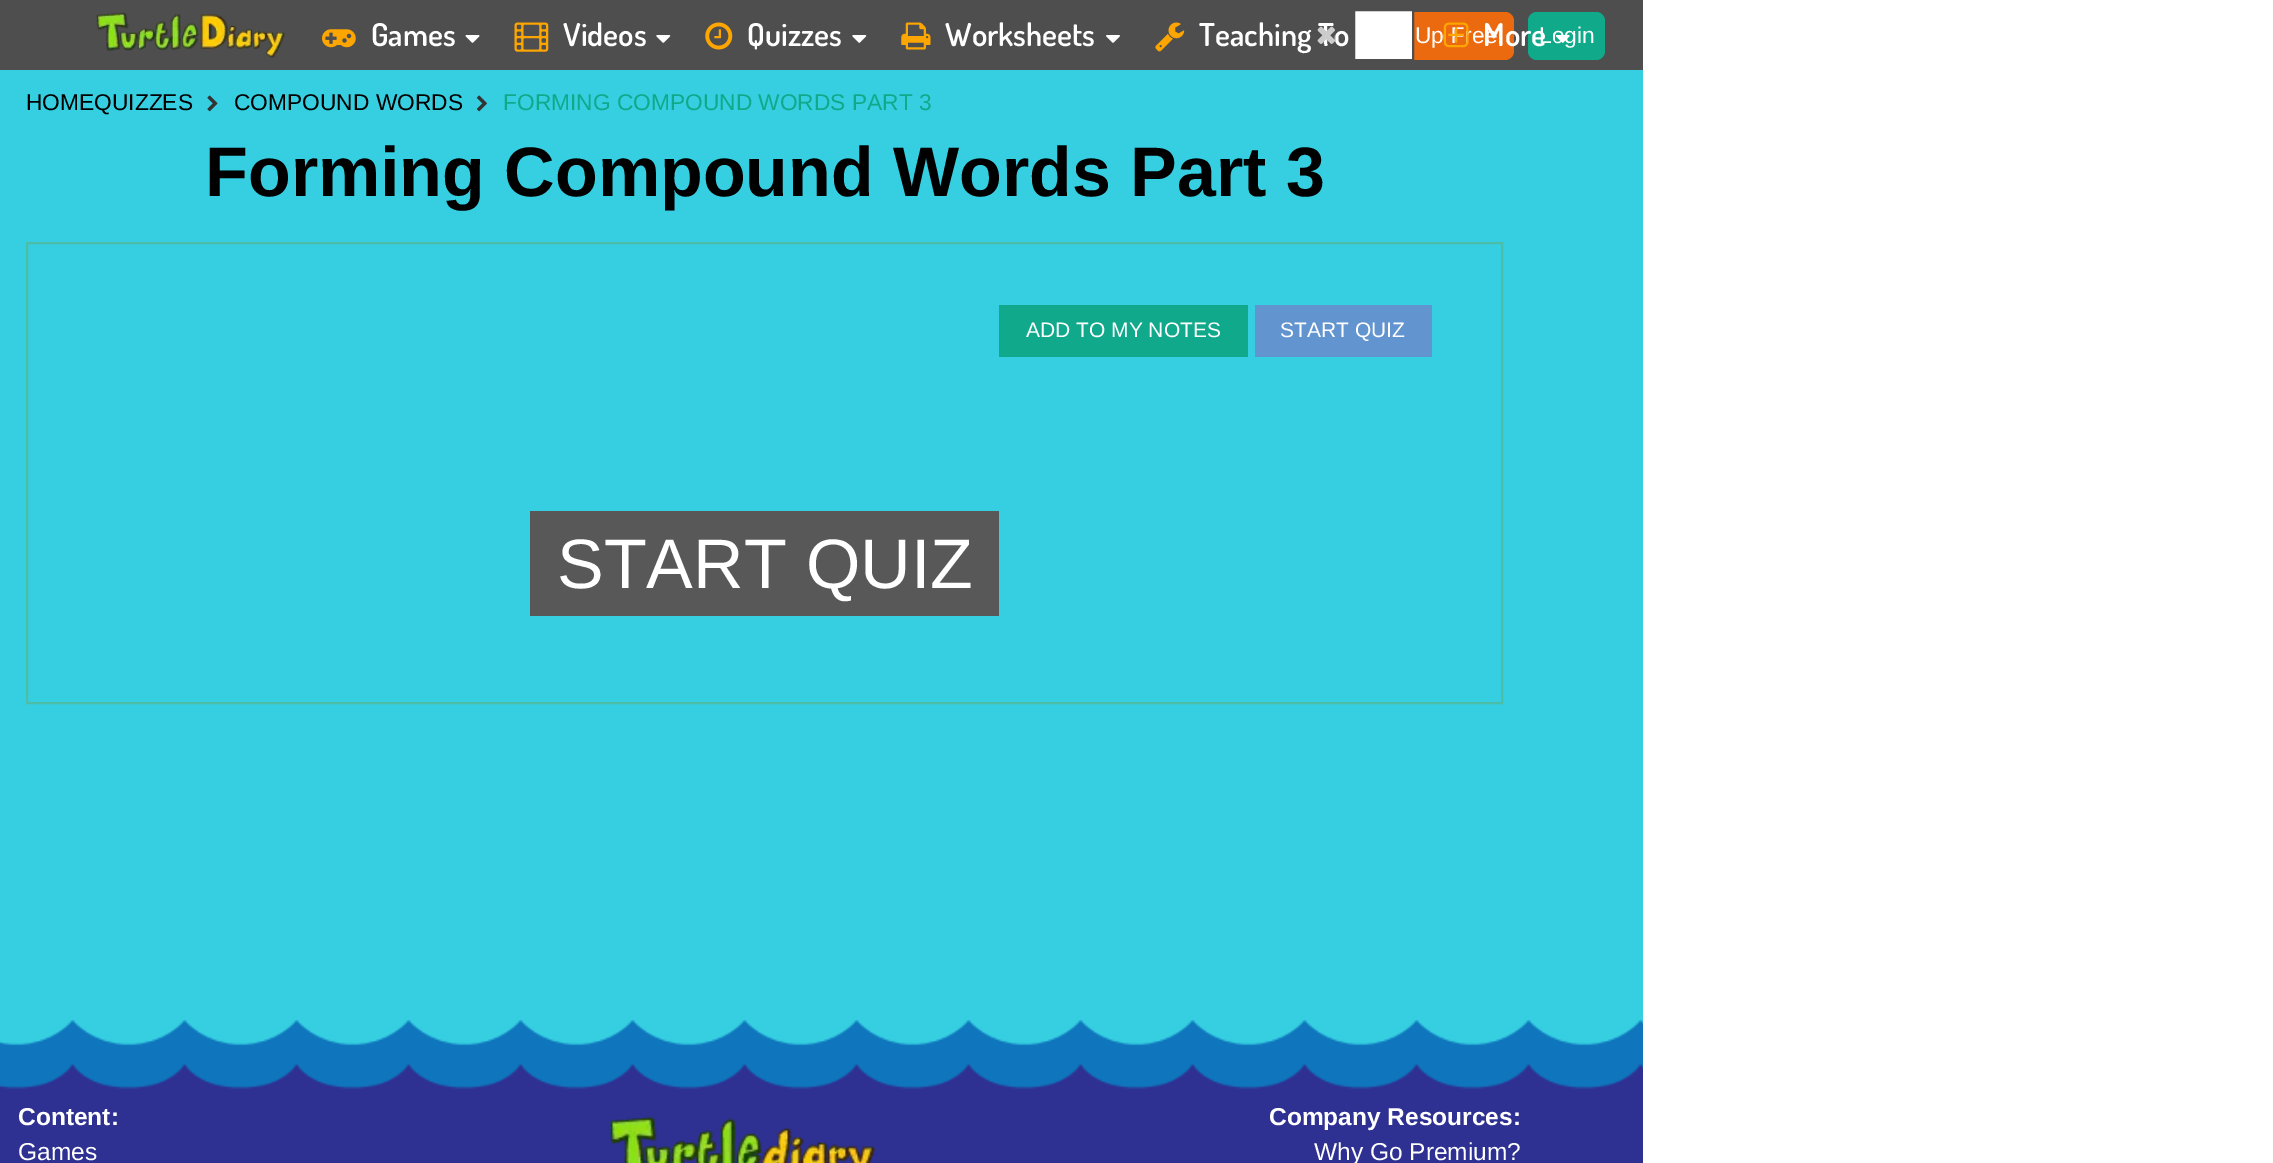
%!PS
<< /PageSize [2273 1163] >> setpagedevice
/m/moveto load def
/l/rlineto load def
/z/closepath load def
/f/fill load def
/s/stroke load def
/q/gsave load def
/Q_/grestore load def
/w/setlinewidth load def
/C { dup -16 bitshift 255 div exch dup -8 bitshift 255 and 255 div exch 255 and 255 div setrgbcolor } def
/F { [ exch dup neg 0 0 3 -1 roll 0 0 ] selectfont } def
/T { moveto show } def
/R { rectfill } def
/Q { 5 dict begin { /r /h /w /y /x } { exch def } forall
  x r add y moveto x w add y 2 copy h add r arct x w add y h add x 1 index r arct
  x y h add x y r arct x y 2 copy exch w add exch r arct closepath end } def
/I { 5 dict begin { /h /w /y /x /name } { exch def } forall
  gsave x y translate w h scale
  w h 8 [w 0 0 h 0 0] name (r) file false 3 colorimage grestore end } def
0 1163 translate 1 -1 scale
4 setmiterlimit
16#4E4E4E C
0 0 2273 1163 R
(1.rgb) 96 12 189 46 I
(2.rgb) 322 29 34 19 I
/Dosis-SemiBold 31.5 F
16#FFFFFF C
(Games) 371 46 T
(3.rgb) 465 35 15 8 I
(4.rgb) 514 22 35 30 I
(Videos) 563 46 T
(5.rgb) 656 35 15 8 I
(6.rgb) 705 22 28 28 I
(Quizzes) 747 46 T
(5.rgb) 852 35 15 8 I
(7.rgb) 901 22 30 28 I
(Worksheets) 945 46 T
(8.rgb) 1106 35 14 8 I
(9.rgb) 1155 22 30 30 I
(Teaching To) 1199 46 T
16#EB690F C
1353 12 161 48 9 Q f
/LiberationSans-Regular 22.75 F
16#FFFFFF C
(Up Free!) 1415 43 T
(10.rgb) 1443 22 26 26 I
16#10A98A C
1528 12 77 48 9 Q f
16#FFFFFF C
(Login) 1539 43 T
/Dosis-SemiBold 31.5 F
(More) 1483 46 T
(11.rgb) 1555 35 15 8 I
(12.rgb) 1317 26 18 18 I
1354 10 m 59 0 l 0 50 l -59 0 l z q f Q_
16#4E4E4E C
2 w
s
16#FFFFFF C
1643 0 630 1163 R
16#35CFE1 C
0 70 1643 976 R
/LiberationSans-Regular 22.75 F
16#000000 C
(HOMEQUIZZES) 26 110 T
(13.rgb) 207 95 11 17 I
(COMPOUND WORDS) 234 110 T
(14.rgb) 476 95 11 17 I
16#10A98A C
(FORMING COMPOUND WORDS PART 3) 503 110 T
/LiberationSans-Bold 70 F
16#000000 C
(Forming Compound Words Part 3) 205 196 T
16#4CBEA7 C
27 243 1475 460 rectstroke
16#10A98B C
999 305 249 52 R
/LiberationSans-Regular 21 F
16#FFFFFF C
(ADD TO MY NOTES) 1026 337 T
16#6295D0 C
1255 305 177 52 R
16#FFFFFF C
(START QUIZ) 1280 337 T
16#585858 C
530 511 469 105 R
/LiberationSans-Regular 70 F
16#FFFFFF C
(START QUIZ) 557 588 T
16#2E3192 C
0 1063 1643 100 R
(15.rgb) 0 1020 1643 69 I
/LiberationSans-Bold 24.5 F
16#FFFFFF C
(Content:) 18 1125 T
/LiberationSans-Regular 24.5 F
(Games) 18 1160 T
(16.rgb) 610 1116 265 47 I
/LiberationSans-Bold 24.5 F
(Company Resources:) 1269 1125 T
/LiberationSans-Regular 24.5 F
(Why Go Premium?) 1314 1160 T
showpage
